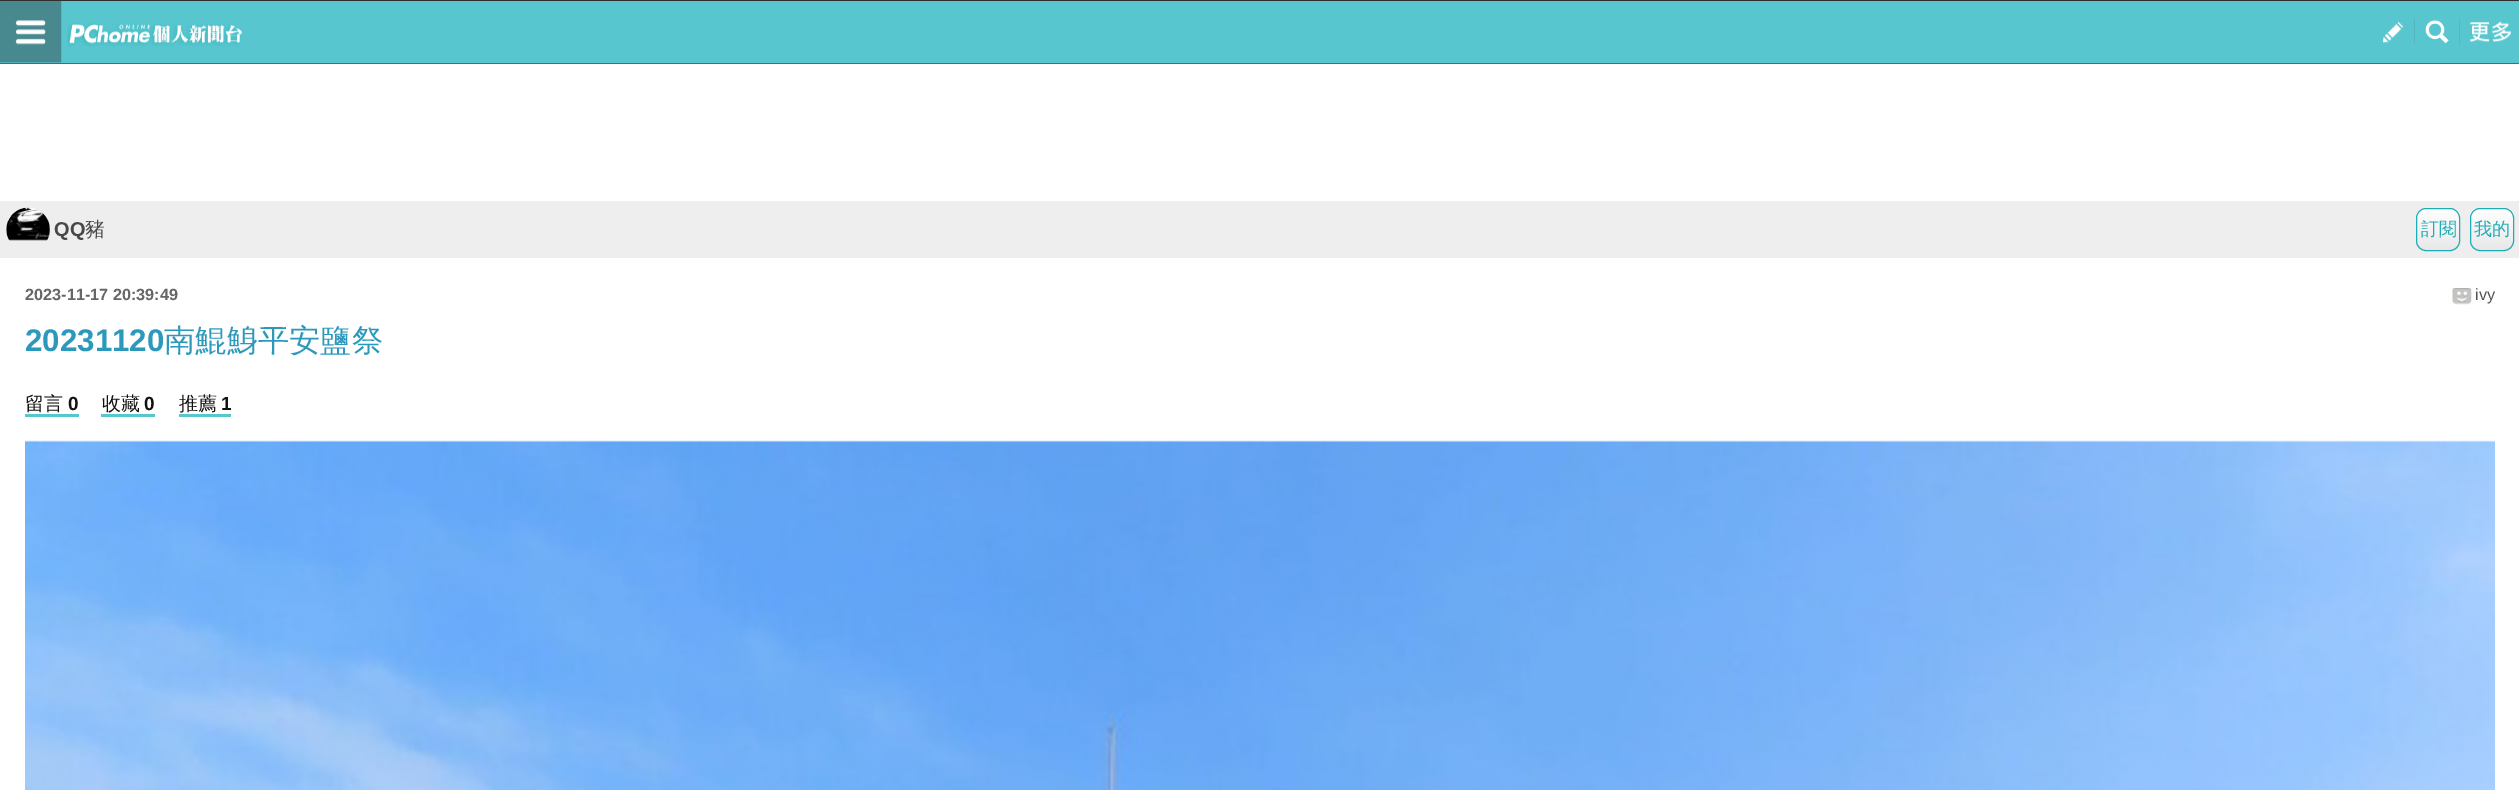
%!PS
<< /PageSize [2519 790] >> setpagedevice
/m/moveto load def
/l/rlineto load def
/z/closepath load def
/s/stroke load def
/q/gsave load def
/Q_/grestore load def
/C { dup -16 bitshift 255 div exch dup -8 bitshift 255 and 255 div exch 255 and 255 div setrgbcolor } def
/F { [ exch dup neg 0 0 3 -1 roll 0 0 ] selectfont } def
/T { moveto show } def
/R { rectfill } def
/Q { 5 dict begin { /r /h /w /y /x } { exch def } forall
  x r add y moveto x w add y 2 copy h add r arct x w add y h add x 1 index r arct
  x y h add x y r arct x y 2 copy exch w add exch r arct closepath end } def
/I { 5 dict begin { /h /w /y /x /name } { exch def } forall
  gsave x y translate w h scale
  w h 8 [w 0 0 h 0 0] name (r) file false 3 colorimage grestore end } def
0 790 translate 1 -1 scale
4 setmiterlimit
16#FFFFFF C
0 0 2519 790 R
16#58C6CE C
0 1 2519 62 R
16#2F2F2F C
0 0 2519 1 R
16#34787D C
0 63 2519 1 R
(1.rgb) 0 1 62 62 I
(2.rgb) 67 23 175 24 I
(3.rgb) 2382 19 33 25 I
(4.rgb) 2425 20 24 24 I
(5.rgb) 2459 20 53 24 I
16#EEEEEE C
0 201 2519 57 R
(6.rgb) 6 207 44 34 I
/LiberationSans-Bold 20 F
16#484848 C
(QQ) 54 236 T
/WenQuanYiZenHei-Medium 20 F
(豬) 85 236 T
q
2416 208 44 43 10 Q clip newpath
q 2416 209 m 44 0 l 0 41 l -44 0 l z clip newpath
<< /ShadingType 2 /ColorSpace /DeviceRGB /Coords [2438 209 2438 250] /Extend [true true] /Function << /FunctionType 2 /Domain [0 1] /C0 [1 1 1] /C1 [.91 .91 .91] /N 1 >> >> shfill Q_
Q_
16#1FACB6 C
2416.5 208.5 43 42 9.5 Q s
/WenQuanYiZenHei-Medium 18 F
(訂閱) 2421 235 T
q
2470 208 44 43 10 Q clip newpath
q 2470 209 m 44 0 l 0 41 l -44 0 l z clip newpath
<< /ShadingType 2 /ColorSpace /DeviceRGB /Coords [2492 209 2492 250] /Extend [true true] /Function << /FunctionType 2 /Domain [0 1] /C0 [1 1 1] /C1 [.91 .91 .91] /N 1 >> >> shfill Q_
Q_
2470.5 208.5 43 42 9.5 Q s
(我的) 2474 235 T
/LiberationSans-Bold 16.25 F
16#666666 C
(2023-11-17 20:39:49) 25 300 T
(7.rgb) 2452 288 20 17 I
/LiberationSans-Regular 16.25 F
16#535353 C
(ivy) 2475 300 T
/LiberationSans-Bold 31.25 F
16#2C99BC C
(20231120) 25 351 T
/WenQuanYiZenHei-Medium 31.25 F
(南鯤鯓平安鹽祭) 164 351 T
/WenQuanYiZenHei-Medium 19 F
16#111111 C
(留言) 25 410 T
16#58C6CE C
25 414 54 3 R
/LiberationSans-Bold 19 F
16#111111 C
(0) 68 410 T
/WenQuanYiZenHei-Medium 19 F
(收藏) 102 410 T
16#58C6CE C
101 414 54 3 R
/LiberationSans-Bold 19 F
16#111111 C
(0) 144 410 T
/WenQuanYiZenHei-Medium 19 F
(推薦) 179 410 T
16#58C6CE C
179 414 52 3 R
/LiberationSans-Bold 19 F
16#111111 C
(1) 221 410 T
(8.rgb) 25 440 2470 350 I
showpage
